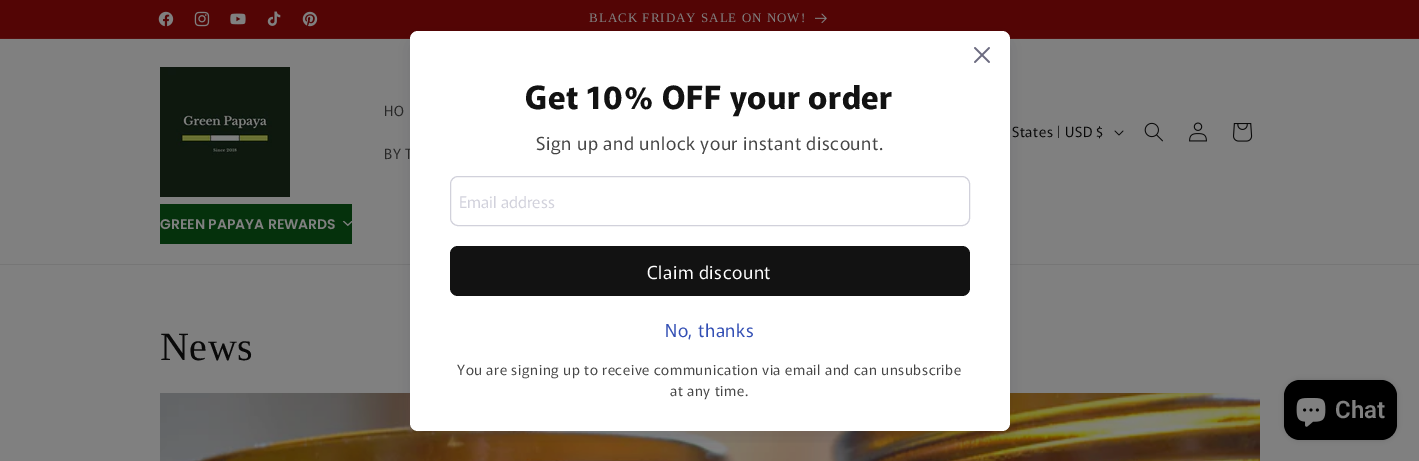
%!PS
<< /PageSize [1419 461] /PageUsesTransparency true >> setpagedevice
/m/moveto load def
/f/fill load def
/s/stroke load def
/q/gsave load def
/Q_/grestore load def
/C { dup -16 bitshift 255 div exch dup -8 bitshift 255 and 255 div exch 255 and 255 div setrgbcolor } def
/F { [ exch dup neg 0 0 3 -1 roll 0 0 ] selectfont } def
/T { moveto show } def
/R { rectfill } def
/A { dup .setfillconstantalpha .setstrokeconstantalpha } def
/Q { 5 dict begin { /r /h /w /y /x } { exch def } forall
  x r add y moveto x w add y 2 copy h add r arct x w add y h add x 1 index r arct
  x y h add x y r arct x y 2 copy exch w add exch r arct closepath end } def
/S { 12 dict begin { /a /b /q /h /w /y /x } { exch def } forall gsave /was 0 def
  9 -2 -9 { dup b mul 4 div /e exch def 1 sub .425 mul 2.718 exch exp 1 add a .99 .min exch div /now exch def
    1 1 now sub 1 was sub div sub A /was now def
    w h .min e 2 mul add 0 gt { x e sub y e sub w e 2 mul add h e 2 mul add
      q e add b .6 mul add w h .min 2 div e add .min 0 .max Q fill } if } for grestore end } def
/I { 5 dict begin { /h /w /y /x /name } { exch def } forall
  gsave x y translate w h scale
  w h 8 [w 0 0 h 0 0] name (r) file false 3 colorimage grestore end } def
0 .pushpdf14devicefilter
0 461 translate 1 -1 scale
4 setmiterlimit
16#808080 C
0 0 1419 461 R
16#530505 C
0 0 1419 38 R
16#570F0F C
0 38 1419 1 R
(1.rgb) 158 11 16 16 I
(2.rgb) 194 11 16 16 I
(3.rgb) 230 13 16 12 I
(4.rgb) 267 11 14 15 I
(5.rgb) 302 11 16 16 I
/LiberationSerif-Regular 13 F
16#808080 C
589 22 m 1 0 (BLACK FRIDAY SALE ON NOW!) ashow
(6.rgb) 815 13 12 10 I
16#767676 C
0 264 1419 1 R
(14.rgb) 160 393 1100 68 I
q
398 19 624 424 rectclip
16#121127 C
410 39 600 400 8 10 .1 S
Q_
/Murecho-Regular 14 F
16#272727 C
384 159 m .6 0 (BY T) ashow
16#FFFFFF C
410 31 600 400 8 Q f
(7.rgb) 974 47 16 16 I
/Murecho-Bold 32 F
16#121212 C
525 109 m .6 0 (Get 10% OFF your order) ashow
/Murecho-Regular 18 F
16#454545 C
536 150 m .6 0 (Sign up and unlock your instant discount.) ashow
16#D1D1DB C
450.5 176.5 519 49 7.5 Q s
/Murecho-Regular 16 F
(Email address) 459 208 T
16#121212 C
450 246 520 50 8 Q f
/Murecho-Regular 18 F
16#FFFFFF C
647 279 m .6 0 (Claim discount) ashow
16#334FB4 C
665 337 m .6 0 (No, thanks) ashow
/Murecho-Regular 14 F
16#454545 C
457 375 m .6 0 (You are signing up to receive communication via email and can unsubscribe) ashow
670 396 m .6 0 (at any time.) ashow
(8.rgb) 160 67 130 130 I
16#272727 C
384 116 m .6 0 (HO) ashow
16#090909 C
1012 137 m .6 0 (States | USD $) ashow
(9.rgb) 1114 130 10 6 I
(10.rgb) 1144 122 19 20 I
(11.rgb) 1189 122 18 20 I
(12.rgb) 1233 123 20 19 I
16#05310C C
160 204 192 40 R
/Poppins-SemiBold 14 F
16#808080 C
(GREEN PAPAYA REWARDS) 160 229 T
(13.rgb) 342 221 10 6 I
/LiberationSerif-Regular 40 F
16#090909 C
160 360 m .6 0 (News) ashow
16#000000 C
1284 380 113 60 16 2.5 .15 S
1284 380 113 60 16 Q f
(15.rgb) 1296 398 30 29 I
/Roboto-SemiBold 24 F
16#808080 C
(Chat) 1335 418 T
.poppdf14devicefilter showpage
